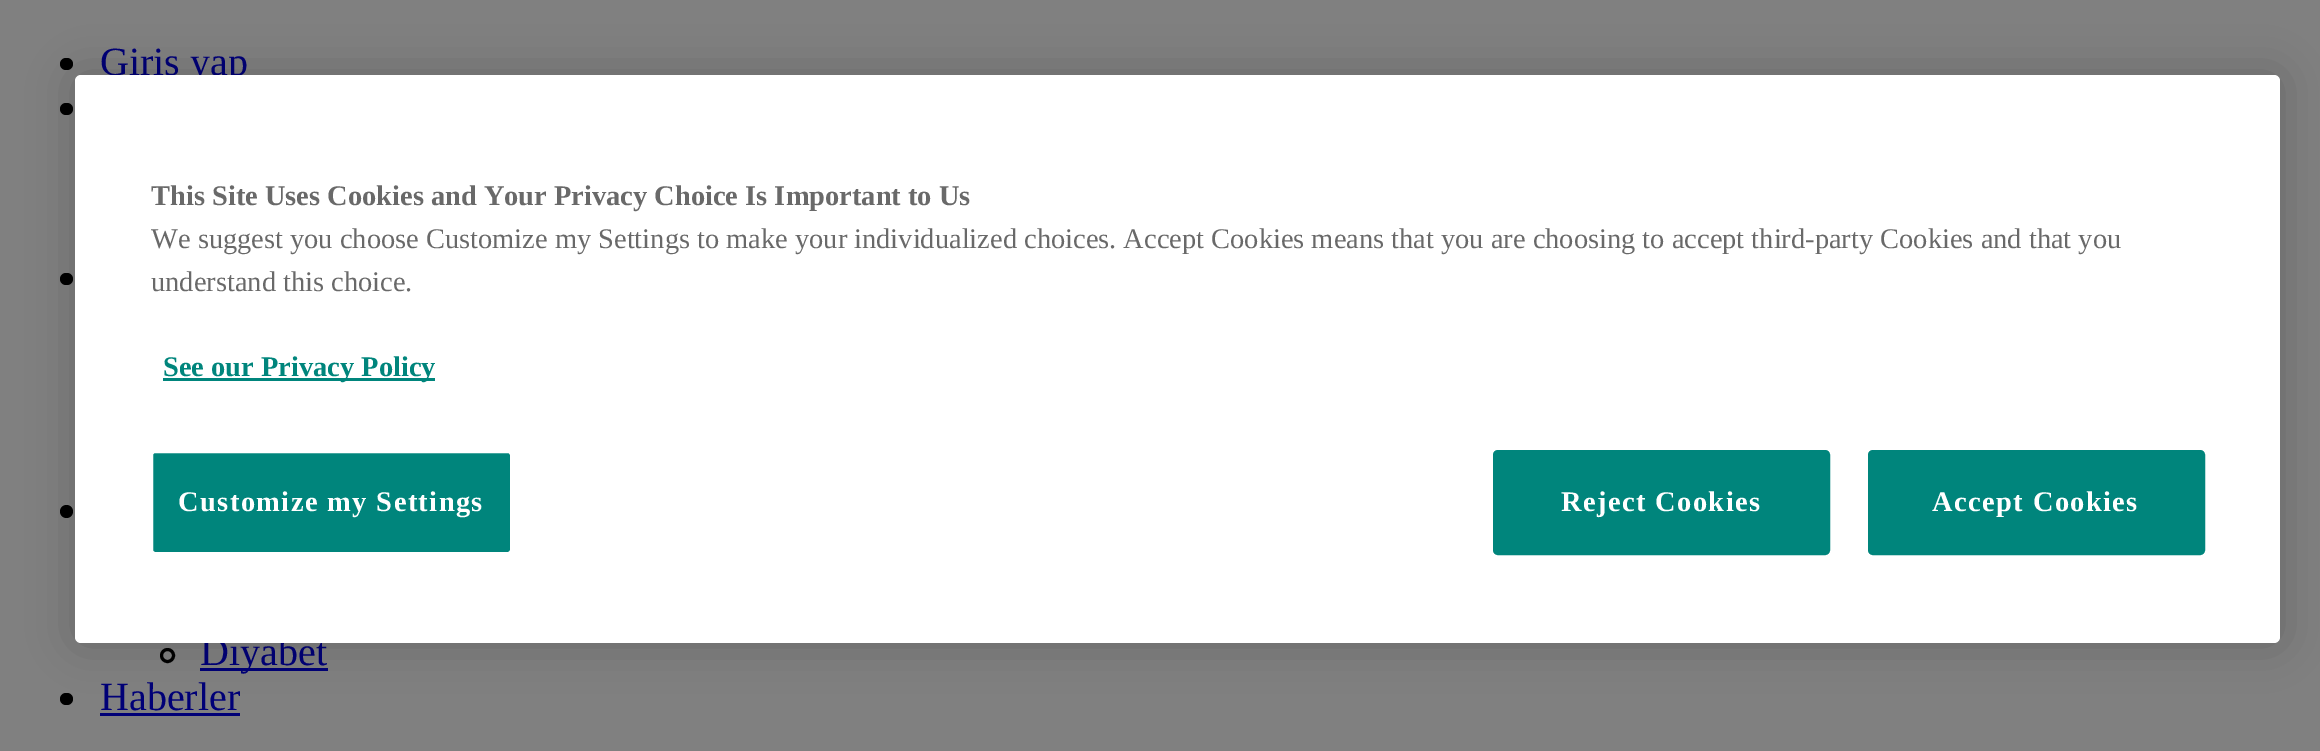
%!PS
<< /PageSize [2320 751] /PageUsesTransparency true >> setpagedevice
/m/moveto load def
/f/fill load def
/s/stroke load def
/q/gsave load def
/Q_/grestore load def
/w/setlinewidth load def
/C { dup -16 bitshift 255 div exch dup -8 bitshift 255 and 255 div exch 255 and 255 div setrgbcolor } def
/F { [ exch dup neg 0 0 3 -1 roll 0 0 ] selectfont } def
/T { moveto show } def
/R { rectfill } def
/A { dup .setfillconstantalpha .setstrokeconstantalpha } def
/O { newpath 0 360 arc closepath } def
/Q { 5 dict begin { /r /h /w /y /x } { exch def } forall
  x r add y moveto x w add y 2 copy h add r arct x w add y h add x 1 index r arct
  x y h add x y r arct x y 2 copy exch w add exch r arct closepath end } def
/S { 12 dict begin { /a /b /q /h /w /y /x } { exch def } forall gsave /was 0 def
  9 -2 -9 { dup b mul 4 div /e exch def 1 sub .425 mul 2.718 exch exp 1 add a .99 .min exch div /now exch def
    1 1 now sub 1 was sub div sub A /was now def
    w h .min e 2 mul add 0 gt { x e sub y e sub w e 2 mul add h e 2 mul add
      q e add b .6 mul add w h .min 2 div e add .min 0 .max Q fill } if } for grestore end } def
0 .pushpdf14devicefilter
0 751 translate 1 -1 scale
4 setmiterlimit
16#808080 C
0 0 2320 751 R
16#000000 C
60 58 13 12 6 Q f
/LiberationSerif-Regular 40 F
16#000077 C
(Giriş yap) 100 75 T
16#000000 C
60 103 13 12 6 Q f
60 273 13 12 6 Q f
66.5 511.5 6.5 O f
3 w
167.5 655.5 6 O s
16#000077 C
200 668 128 3 R
(Diyabet) 200 665 T
16#000000 C
60 693 13 12 6 Q f
16#000077 C
(Haberler) 100 710 T
100 713 140 3 R
16#000000 C
75 75 2205 568 6 22.5 .2 S
16#FFFFFF C
75 75 2205 568 6 Q f
/LiberationSerif-Bold 28.45 F
16#696969 C
(This Site Uses Cookies and Your Privacy Choice Is Important to Us) 151 205 T
/LiberationSerif-Regular 28.45 F
(We suggest you choose Customize my Settings to make your individualized choices. Accept Cookies means that you are choosing to accept third-party Cookies and that you) 151 248 T
(understand this choice.) 151 291 T
16#00857C C
163 378 272 3 R
/LiberationSerif-Bold 28.45 F
(See our Privacy Policy) 163 376 T
151.5 451.5 360 102 3.5 Q q f Q_
16#FFFFFF C
s
178 511 m 1.4 0 (Customize my Settings) ashow
16#00857C C
1494.5 451.5 334 102 3.5 Q q f Q_
s
16#FFFFFF C
1561 511 m 1.4 0 (Reject Cookies) ashow
16#00857C C
1869.5 451.5 334 102 3.5 Q q f Q_
s
16#FFFFFF C
1932 511 m 1.4 0 (Accept Cookies) ashow
.poppdf14devicefilter showpage
